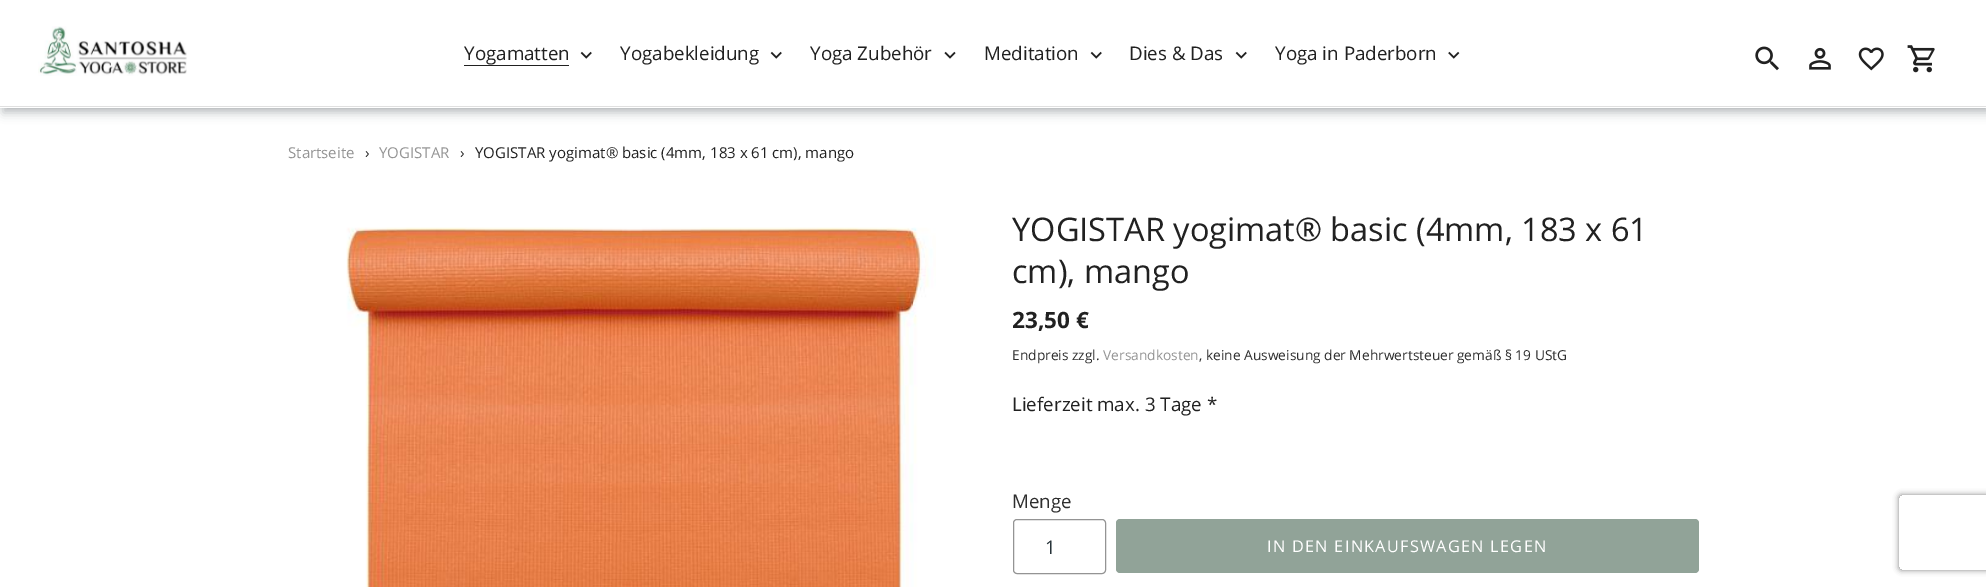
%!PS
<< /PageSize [1986 587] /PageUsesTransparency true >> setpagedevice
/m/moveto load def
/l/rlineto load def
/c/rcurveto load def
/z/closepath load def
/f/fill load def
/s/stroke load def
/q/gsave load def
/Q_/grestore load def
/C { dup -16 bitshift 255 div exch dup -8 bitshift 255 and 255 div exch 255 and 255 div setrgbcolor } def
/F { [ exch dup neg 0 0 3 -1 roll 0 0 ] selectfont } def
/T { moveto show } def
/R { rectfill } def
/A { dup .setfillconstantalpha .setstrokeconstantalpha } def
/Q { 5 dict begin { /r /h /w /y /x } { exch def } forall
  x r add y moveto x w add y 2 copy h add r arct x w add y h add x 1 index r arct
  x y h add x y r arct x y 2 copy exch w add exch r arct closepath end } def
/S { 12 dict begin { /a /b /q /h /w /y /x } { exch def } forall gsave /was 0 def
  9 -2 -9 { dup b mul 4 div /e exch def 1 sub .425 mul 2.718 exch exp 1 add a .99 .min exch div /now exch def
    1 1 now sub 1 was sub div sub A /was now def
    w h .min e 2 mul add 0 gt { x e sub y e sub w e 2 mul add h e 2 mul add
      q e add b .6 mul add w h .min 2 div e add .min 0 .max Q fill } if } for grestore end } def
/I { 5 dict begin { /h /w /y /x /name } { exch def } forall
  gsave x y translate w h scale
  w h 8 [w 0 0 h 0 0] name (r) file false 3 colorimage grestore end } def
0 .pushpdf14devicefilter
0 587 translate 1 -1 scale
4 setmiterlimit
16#FFFFFF C
0 0 1986 587 R
16#263238 C
3 5 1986 108 0 5 .28 S
0 0 1986 108 0 2.5 .14 S
16#FFFFFF C
0 0 1986 108 R
16#E0E0E0 C
0 106 1986 1 R
(1.rgb) 38 26 149 50 I
/OpenSans-Regular 18.75 F
16#212121 C
(Yogamatten) 464 60 T
464 65 105 1 R
(2.rgb) 580 51 12 8 I
(Yogabekleidung) 620 60 T
(2.rgb) 770 51 12 8 I
(Yoga Zubehör) 810 60 T
(3.rgb) 944 51 12 8 I
(Meditation) 984 60 T
(2.rgb) 1090 51 12 8 I
(Dies & Das) 1129 60 T
(2.rgb) 1235 51 12 8 I
(Yoga in Paderborn) 1275 60 T
(4.rgb) 1448 51 12 8 I
(5.rgb) 1755 46 24 25 I
(6.rgb) 1809 47 22 23 I
(7.rgb) 1858 47 26 24 I
(8.rgb) 1907 45 28 28 I
/OpenSans-Regular 15 F
16#949494 C
(Startseite) 288 158 T
16#212121 C
(›) 365 158 T
16#949494 C
(YOGISTAR) 379 158 T
16#212121 C
(›) 460 158 T
(YOGISTAR yogimat® basic \(4mm, 183 x 61 cm\), mango) 475 158 T
(9.rgb) 346 227 590 360 I
/OpenSans-Regular 32.5 F
(YOGISTAR yogimat® basic \(4mm, 183 x 61) 1012 241 T
(cm\), mango) 1012 283 T
/OpenSans-Bold 22.5 F
(23,50 €) 1012 328 T
/OpenSans-Regular 13.75 F
16#2E2E2E C
(Endpreis zzgl.) 1012 360 T
16#949494 C
(Versandkosten) 1103 360 T
16#2E2E2E C
(, keine Ausweisung der Mehrwertsteuer gemäß § 19 UStG) 1199 360 T
/OpenSans-Regular 18.75 F
16#212121 C
(Lieferzeit max. 3 Tage *) 1012 411 T
16#2E2E2E C
(Menge) 1012 508 T
16#949494 C
1013.5 519.5 92 54 3.5 Q s
16#263238 C
(1) 1045 554 T
16#91A398 C
1116 519 583 54 4 Q f
/OpenSans-Regular 16.25 F
16#FFFFFF C
1267 552 m 1.3 0 (IN DEN EINKAUFSWAGEN LEGEN) ashow
q
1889 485 m 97 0 l 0 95 l -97 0 l z 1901.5 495 m 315 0 l 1.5 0 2.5 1 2.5 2.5 c 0 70 l 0 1.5 -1 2.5 -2.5 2.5 c -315 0 l -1.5 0 -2.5 -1 -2.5 -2.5 c 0 -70 l 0 -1.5 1 -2.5 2.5 -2.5 c z eoclip newpath
16#808080 C
1899 495 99 75 2.5 3 1 S
Q_
.poppdf14devicefilter showpage
